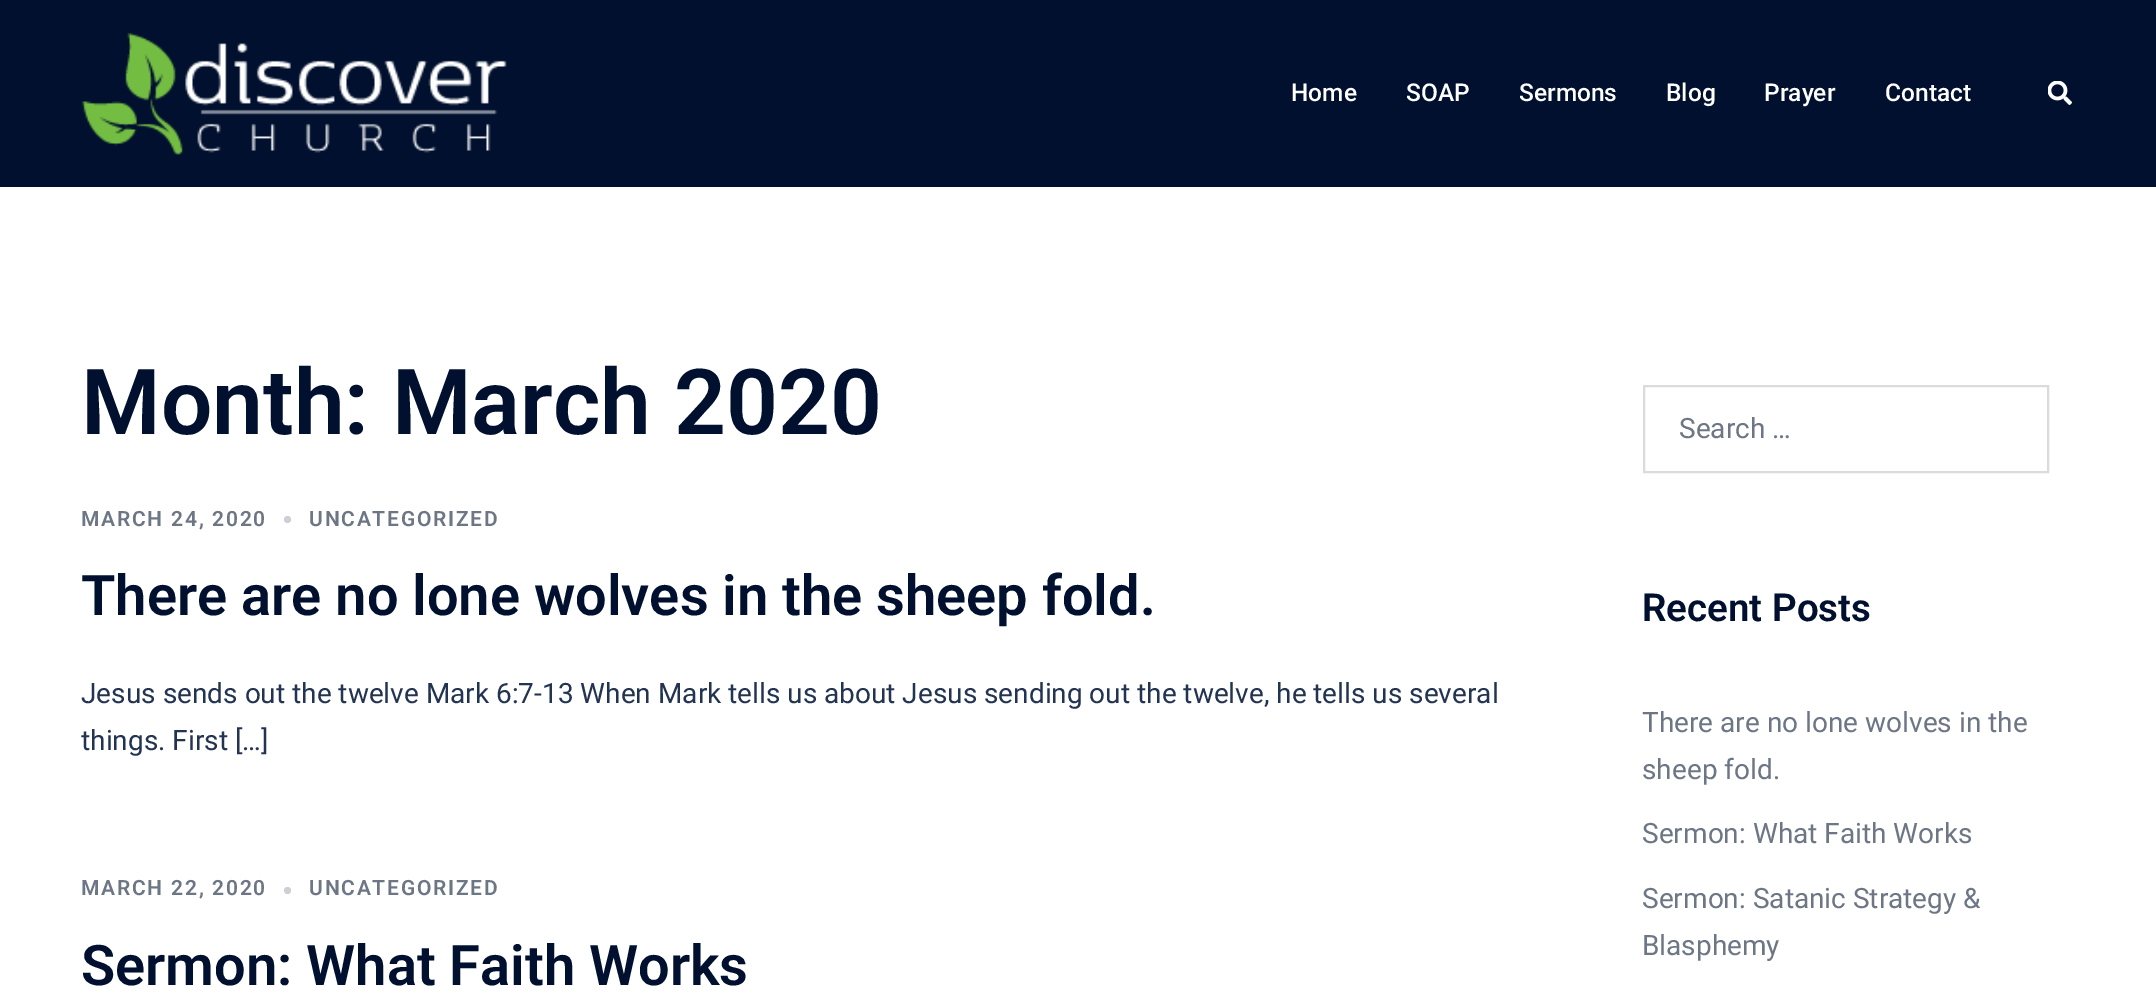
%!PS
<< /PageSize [2156 993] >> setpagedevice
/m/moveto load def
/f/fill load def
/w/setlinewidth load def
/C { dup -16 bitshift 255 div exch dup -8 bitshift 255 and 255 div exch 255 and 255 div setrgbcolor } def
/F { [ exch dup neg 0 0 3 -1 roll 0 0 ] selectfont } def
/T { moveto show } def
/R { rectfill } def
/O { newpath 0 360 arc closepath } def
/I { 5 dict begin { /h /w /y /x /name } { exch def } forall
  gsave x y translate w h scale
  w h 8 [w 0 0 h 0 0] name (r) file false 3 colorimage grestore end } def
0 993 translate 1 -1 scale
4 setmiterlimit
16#FFFFFF C
0 0 2156 993 R
16#00102E C
0 0 2156 187 R
(1.rgb) 81 32 426 123 I
/Roboto-Medium 24.5 F
16#FFFFFF C
(Home) 1291 101 T
(SOAP) 1406 101 T
(Sermons) 1519 101 T
(Blog) 1666 101 T
(Prayer) 1764 101 T
(Contact) 1885 101 T
(2.rgb) 2048 81 24 24 I
/Roboto-SemiBold 91 F
16#00102E C
(Month: March 2020) 81 434 T
/Roboto-SemiBold 21 F
16#6D7685 C
81 526 m 1.75 0 (MARCH 24, 2020) ashow
16#CCCFD5 C
287.5 519.5 3.5 O f
16#6D7685 C
309 526 m 1.75 0 (UNCATEGORIZED) ashow
/Roboto-SemiBold 56 F
16#00102E C
(There are no lone wolves in the sheep fold.) 81 615 T
/Roboto-Regular 28 F
16#233452 C
(Jesus sends out the twelve Mark 6:7-13 When Mark tells us about Jesus sending out the twelve, he tells us several) 81 703 T
(things. First […]) 81 750 T
/Roboto-SemiBold 21 F
16#6D7685 C
81 895 m 1.75 0 (MARCH 22, 2020) ashow
16#CCCFD5 C
287.5 890.5 3.5 O f
16#6D7685 C
309 895 m 1.75 0 (UNCATEGORIZED) ashow
/Roboto-SemiBold 56 F
16#00102E C
(Sermon: What Faith Works) 81 985 T
16#DBDBDB C
2 w
1644 386 404 86 rectstroke
/Roboto-Regular 28 F
16#6D7685 C
(Search …) 1679 438 T
/Roboto-SemiBold 38.5 F
16#00102E C
(Recent Posts) 1642 621 T
/Roboto-Regular 28 F
16#6D7685 C
(There are no lone wolves in the) 1642 732 T
(sheep fold.) 1642 779 T
(Sermon: What Faith Works) 1642 843 T
(Sermon: Satanic Strategy &) 1642 908 T
(Blasphemy) 1642 955 T
showpage
